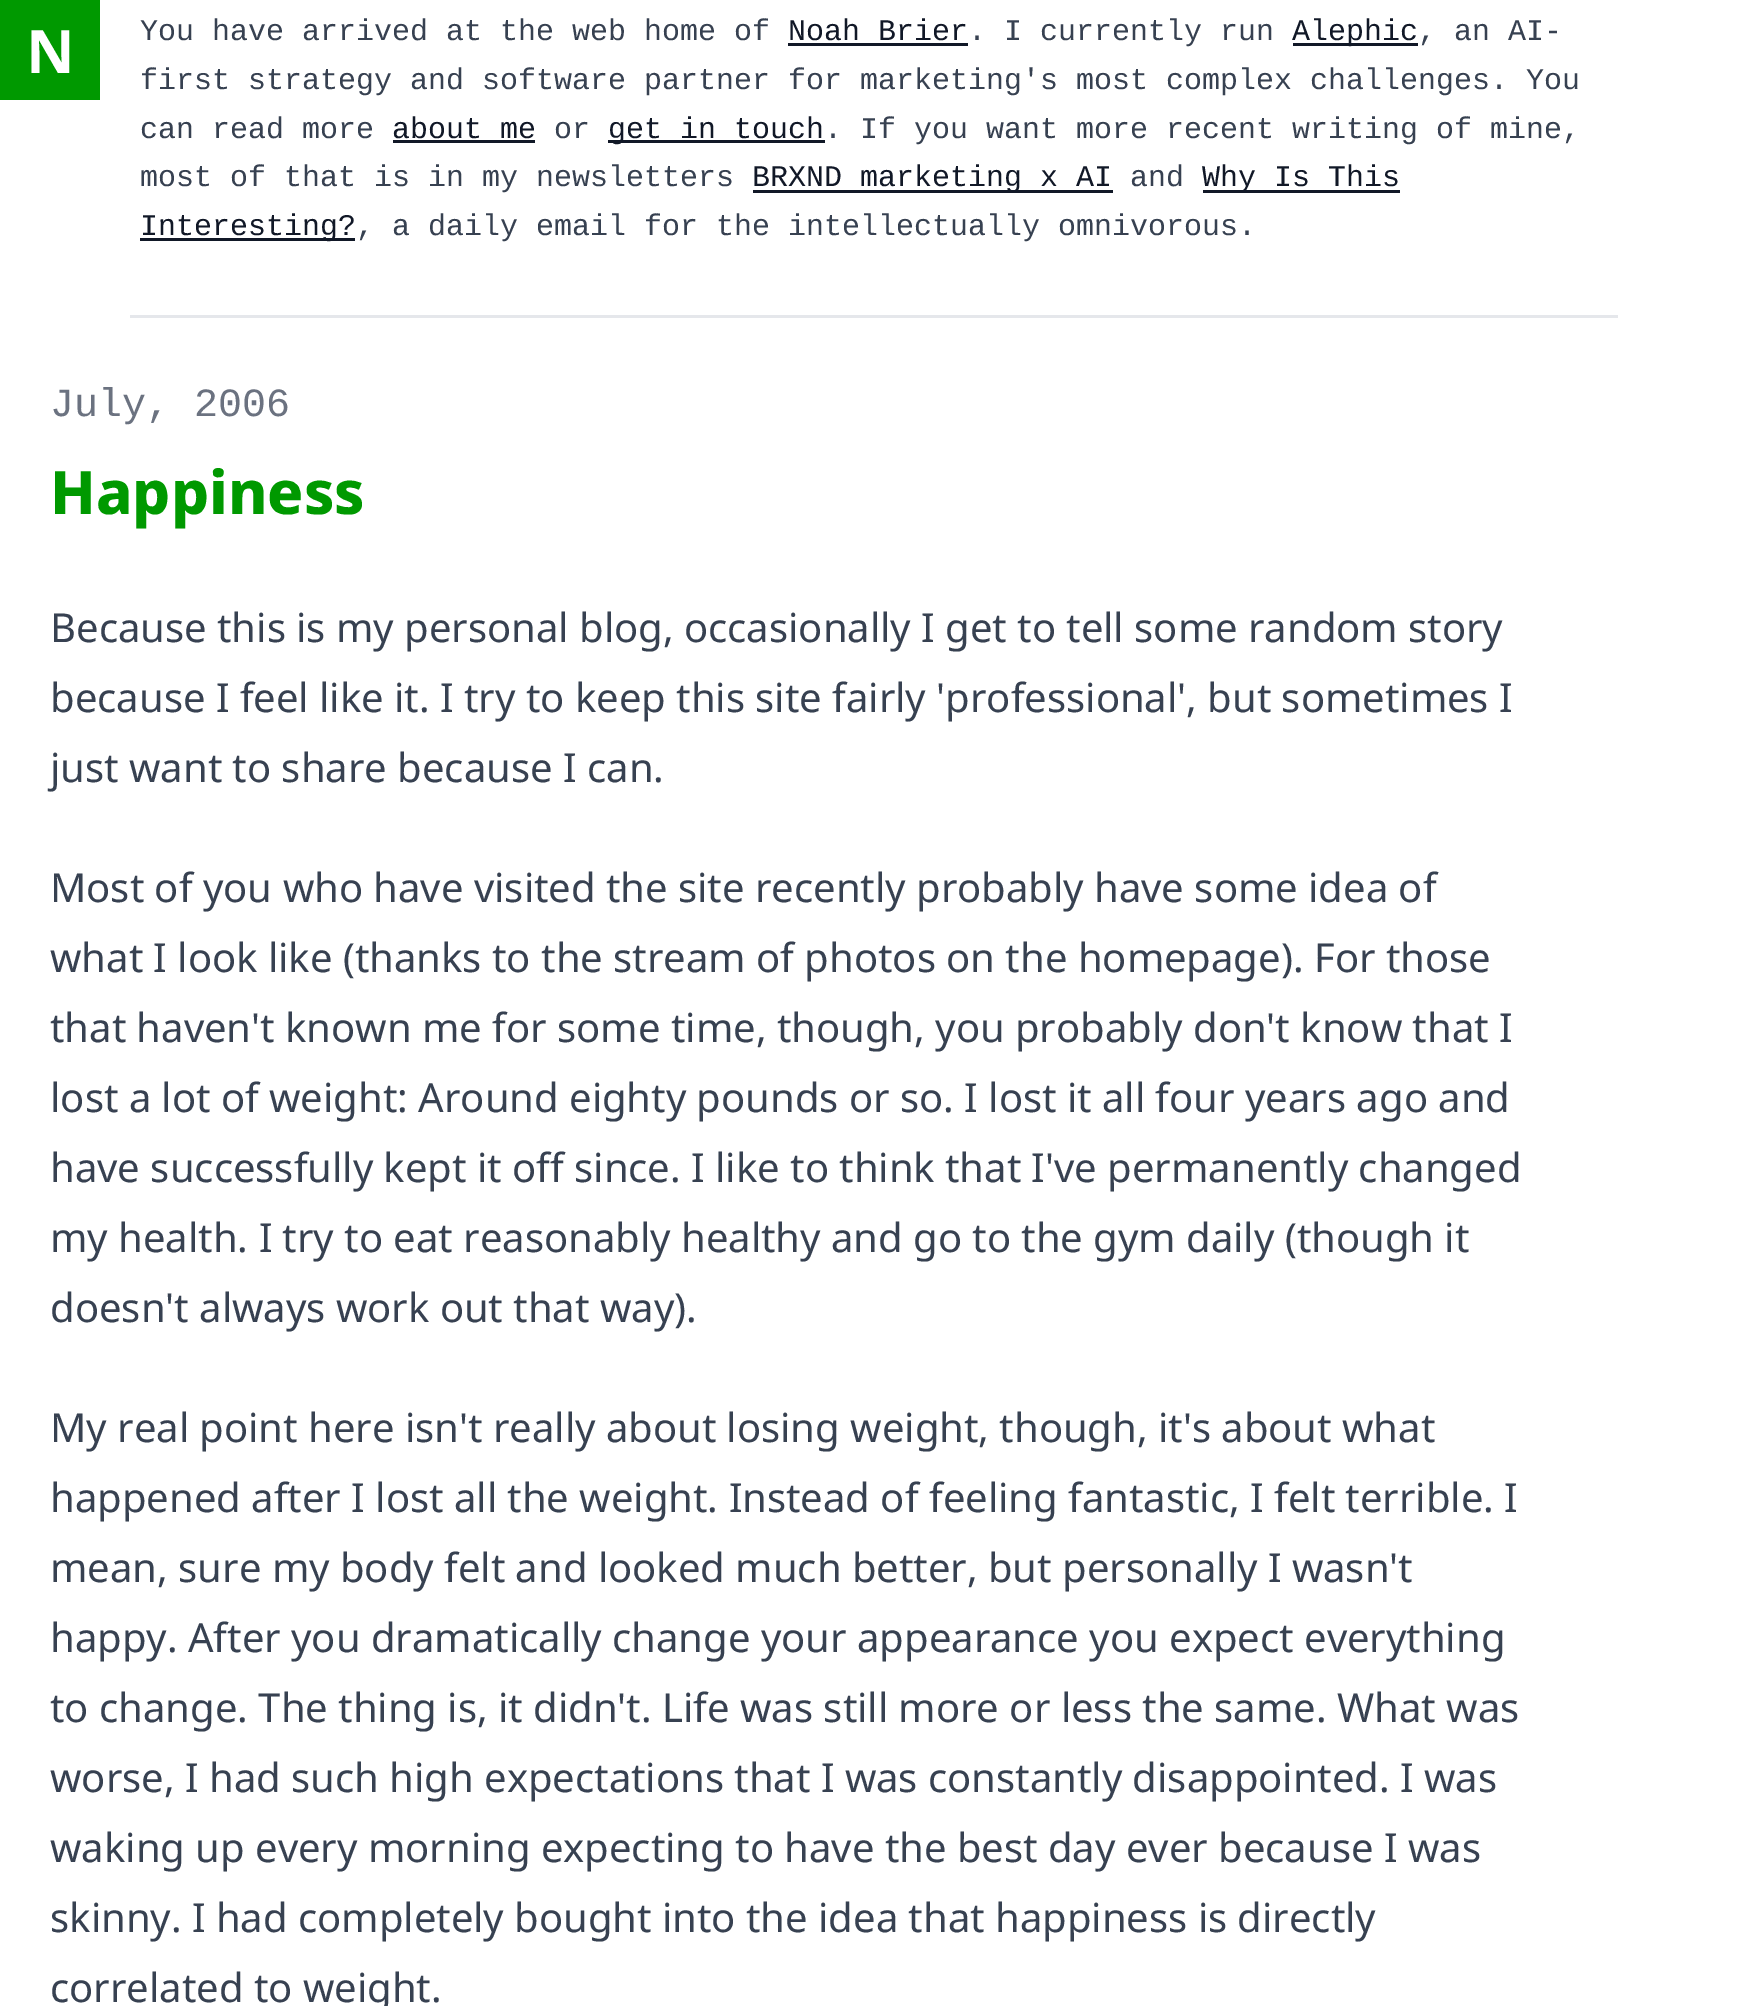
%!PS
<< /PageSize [1749 2006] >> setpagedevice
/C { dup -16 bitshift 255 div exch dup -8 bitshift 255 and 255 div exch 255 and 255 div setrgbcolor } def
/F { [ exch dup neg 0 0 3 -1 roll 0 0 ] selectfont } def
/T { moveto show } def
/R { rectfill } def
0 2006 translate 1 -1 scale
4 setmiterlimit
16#FFFFFF C
0 0 1749 2006 R
16#009900 C
0 0 100 100 R
/NotoSans-Bold 60 F
16#FFFFFF C
(N) 26 73 T
16#E5E7EB C
130 315 1488 3 R
/LiberationMono-Regular 30 F
16#374151 C
(You have arrived at the web home of) 140 40 T
16#111827 C
(Noah Brier) 788 40 T
788 43 180 3 R
16#374151 C
(. I currently run) 968 40 T
16#111827 C
1293 43 125 3 R
(Alephic) 1292 40 T
16#374151 C
(, an AI-) 1418 40 T
(first strategy and software partner for marketing's most complex challenges. You) 140 89 T
(can read more) 140 138 T
16#111827 C
(about me) 392 138 T
393 140 142 3 R
16#374151 C
(or) 554 138 T
16#111827 C
608 140 217 3 R
(get in touch) 608 138 T
16#374151 C
(. If you want more recent writing of mine,) 824 138 T
(most of that is in my newsletters) 140 186 T
16#111827 C
753 190 360 3 R
(BRXND marketing x AI) 752 186 T
16#374151 C
(and) 1130 186 T
16#111827 C
1203 190 197 3 R
(Why Is This) 1202 186 T
140 238 215 3 R
(Interesting?) 140 235 T
16#374151 C
(, a daily email for the intellectually omnivorous.) 356 235 T
/LiberationMono-Regular 40 F
16#6B7280 C
(July, 2006) 50 416 T
/NotoSans-ExtraBold 60 F
16#009900 C
(Happiness) 50 514 T
/NotoSans-Regular 40 F
16#374151 C
(Because this is my personal blog, occasionally I get to tell some random story) 50 642 T
(because I feel like it. I try to keep this site fairly 'professional', but sometimes I) 50 712 T
(just want to share because I can.) 50 782 T
(Most of you who have visited the site recently probably have some idea of) 50 902 T
(what I look like \(thanks to the stream of photos on the homepage\). For those) 50 972 T
(that haven't known me for some time, though, you probably don't know that I) 50 1042 T
(lost a lot of weight: Around eighty pounds or so. I lost it all four years ago and) 50 1112 T
(have successfully kept it off since. I like to think that I've permanently changed) 50 1182 T
(my health. I try to eat reasonably healthy and go to the gym daily \(though it) 50 1252 T
(doesn't always work out that way\).) 50 1322 T
(My real point here isn't really about losing weight, though, it's about what) 50 1442 T
(happened after I lost all the weight. Instead of feeling fantastic, I felt terrible. I) 50 1512 T
(mean, sure my body felt and looked much better, but personally I wasn't) 50 1582 T
(happy. After you dramatically change your appearance you expect everything) 50 1652 T
(to change. The thing is, it didn't. Life was still more or less the same. What was) 50 1722 T
(worse, I had such high expectations that I was constantly disappointed. I was) 50 1792 T
(waking up every morning expecting to have the best day ever because I was) 50 1862 T
(skinny. I had completely bought into the idea that happiness is directly) 50 1932 T
(correlated to weight.) 50 2002 T
showpage
